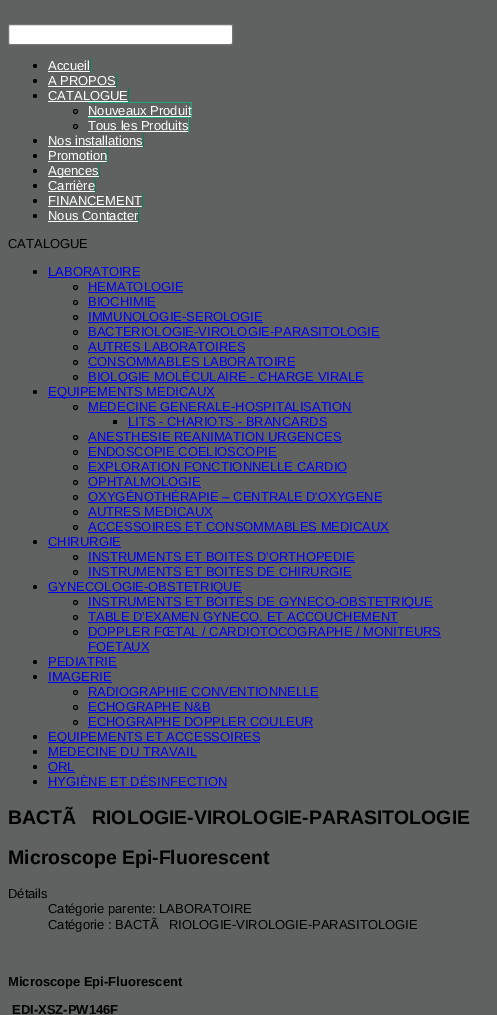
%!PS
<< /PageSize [497 1015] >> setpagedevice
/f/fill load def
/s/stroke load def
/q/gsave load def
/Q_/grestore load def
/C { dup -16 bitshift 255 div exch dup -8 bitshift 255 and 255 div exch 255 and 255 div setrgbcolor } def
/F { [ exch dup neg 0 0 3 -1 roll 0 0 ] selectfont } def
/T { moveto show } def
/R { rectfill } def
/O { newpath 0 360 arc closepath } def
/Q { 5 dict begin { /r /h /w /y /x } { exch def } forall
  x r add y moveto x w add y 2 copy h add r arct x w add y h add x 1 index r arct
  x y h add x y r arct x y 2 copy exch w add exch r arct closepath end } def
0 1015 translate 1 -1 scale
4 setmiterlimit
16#606161 C
0 0 497 1015 R
16#FFFFFF C
8.5 24.5 224 20 1.5 Q q f Q_
16#767676 C
s
16#000000 C
35 66 2 O f
/LiberationSans-Regular 13 F
16#FFFFFF C
(Accueil) 48 70 T
16#07815A C
90 58 1 15 R
16#FFFFFF C
48 71 42 1 R
16#000000 C
35 81 2 O f
16#FFFFFF C
(A PROPOS) 48 85 T
16#07815A C
116 73 1 15 R
16#FFFFFF C
48 86 68 1 R
16#000000 C
35 96 2 O f
16#FFFFFF C
(CATALOGUE) 48 100 T
16#07815A C
128 88 1 15 R
16#FFFFFF C
48 101 80 1 R
16#000000 C
75.5 111.5 2 O s
16#19A97B C
88 102 104 1 R
191 102 1 16 R
16#FFFFFF C
(Nouveaux Produit) 88 115 T
88 116 103 1 R
16#000000 C
75.5 126.5 2 O s
16#FFFFFF C
(Tous les Produits) 88 130 T
16#19A97B C
88 117 101 1 R
188 117 1 16 R
16#FFFFFF C
88 131 100 1 R
16#000000 C
35 141 2 O f
16#FFFFFF C
(Nos installations) 48 145 T
16#07815A C
143 133 1 15 R
16#FFFFFF C
48 146 95 1 R
16#000000 C
35 156 2 O f
16#FFFFFF C
(Promotion) 48 160 T
16#07815A C
107 148 1 15 R
16#FFFFFF C
48 161 59 1 R
16#000000 C
35 171 2 O f
16#FFFFFF C
48 176 51 1 R
(Agences) 48 175 T
16#07815A C
99 163 1 15 R
16#000000 C
35 186 2 O f
16#FFFFFF C
(Carrière) 48 190 T
16#07815A C
95 178 1 15 R
16#FFFFFF C
48 191 47 1 R
16#000000 C
35 201 2 O f
16#FFFFFF C
(FINANCEMENT) 48 205 T
16#07815A C
142 193 1 15 R
16#FFFFFF C
48 206 94 1 R
16#000000 C
35 216 2 O f
16#07815A C
138 208 1 15 R
16#FFFFFF C
(Nous Contacter) 48 220 T
48 221 90 1 R
16#000000 C
(CATALOGUE) 8 248 T
35 272 2 O f
16#0000EE C
(LABORATOIRE) 48 276 T
48 277 92 1 R
16#000000 C
75.5 287.5 2 O s
16#0000EE C
(HEMATOLOGIE) 88 291 T
88 292 95 1 R
16#000000 C
75.5 302.5 2 O s
16#0000EE C
(BIOCHIMIE) 88 306 T
88 307 68 1 R
16#000000 C
75.5 317.5 2 O s
16#0000EE C
(IMMUNOLOGIE-SEROLOGIE) 88 321 T
88 322 175 1 R
16#000000 C
75.5 332.5 2 O s
16#0000EE C
(BACTERIOLOGIE-VIROLOGIE-PARASITOLOGIE) 88 336 T
88 337 292 1 R
16#000000 C
75.5 347.5 2 O s
16#0000EE C
(AUTRES LABORATOIRES) 88 351 T
88 352 157 1 R
16#000000 C
75.5 362.5 2 O s
16#0000EE C
(CONSOMMABLES LABORATOIRE) 88 366 T
88 367 207 1 R
16#000000 C
75.5 377.5 2 O s
16#0000EE C
(BIOLOGIE MOLÉCULAIRE - CHARGE VIRALE) 88 381 T
88 382 276 1 R
16#000000 C
35 392 2 O f
16#0000EE C
48 397 167 1 R
(EQUIPEMENTS MEDICAUX) 48 396 T
16#000000 C
75.5 407.5 2 O s
16#0000EE C
(MEDECINE GENERALE-HOSPITALISATION) 88 411 T
88 412 264 1 R
16#000000 C
113 420 4 4 R
16#0000EE C
(LITS - CHARIOTS - BRANCARDS) 128 426 T
128 427 199 1 R
16#000000 C
75.5 437.5 2 O s
16#0000EE C
(ANESTHESIE REANIMATION URGENCES) 88 441 T
88 442 254 1 R
16#000000 C
75.5 452.5 2 O s
16#0000EE C
(ENDOSCOPIE COELIOSCOPIE) 88 456 T
88 457 189 1 R
16#000000 C
75.5 467.5 2 O s
16#0000EE C
(EXPLORATION FONCTIONNELLE CARDIO) 88 471 T
88 472 259 1 R
16#000000 C
75.5 482.5 2 O s
16#0000EE C
(OPHTALMOLOGIE) 88 486 T
88 487 113 1 R
16#000000 C
75.5 497.5 2 O s
16#0000EE C
(OXYGÉNOTHÉRAPIE – CENTRALE D'OXYGENE) 88 501 T
88 502 294 1 R
16#000000 C
75.5 512.5 2 O s
16#0000EE C
(AUTRES MEDICAUX) 88 516 T
88 517 125 1 R
16#000000 C
75.5 527.5 2 O s
16#0000EE C
(ACCESSOIRES ET CONSOMMABLES MEDICAUX) 88 531 T
88 532 301 1 R
16#000000 C
35 542 2 O f
16#0000EE C
(CHIRURGIE) 48 546 T
48 547 73 1 R
16#000000 C
75.5 557.5 2 O s
16#0000EE C
(INSTRUMENTS ET BOITES D'ORTHOPEDIE) 88 561 T
88 562 267 1 R
16#000000 C
75.5 572.5 2 O s
16#0000EE C
(INSTRUMENTS ET BOITES DE CHIRURGIE) 88 576 T
88 577 264 1 R
16#000000 C
35 587 2 O f
16#0000EE C
48 592 194 1 R
(GYNECOLOGIE-OBSTETRIQUE) 48 591 T
16#000000 C
75.5 602.5 2 O s
16#0000EE C
88 607 345 1 R
(INSTRUMENTS ET BOITES DE GYNECO-OBSTETRIQUE) 88 606 T
16#000000 C
75.5 617.5 2 O s
16#0000EE C
(TABLE D'EXAMEN GYNECO. ET ACCOUCHEMENT) 88 621 T
88 622 310 1 R
16#000000 C
75.5 632.5 2 O s
16#0000EE C
(DOPPLER FŒTAL / CARDIOTOCOGRAPHE / MONITEURS) 88 636 T
88 637 353 1 R
(FOETAUX) 88 651 T
88 652 61 1 R
16#000000 C
35 662 2 O f
16#0000EE C
(PEDIATRIE) 48 666 T
48 667 69 1 R
16#000000 C
35 677 2 O f
16#0000EE C
(IMAGERIE) 48 681 T
48 682 64 1 R
16#000000 C
75.5 692.5 2 O s
16#0000EE C
(RADIOGRAPHIE CONVENTIONNELLE) 88 696 T
88 697 231 1 R
16#000000 C
75.5 707.5 2 O s
16#0000EE C
(ECHOGRAPHE N&B) 88 711 T
88 712 123 1 R
16#000000 C
75.5 722.5 2 O s
16#0000EE C
(ECHOGRAPHE DOPPLER COULEUR) 88 726 T
88 727 225 1 R
16#000000 C
35 737 2 O f
16#0000EE C
48 742 212 1 R
(EQUIPEMENTS ET ACCESSOIRES) 48 741 T
16#000000 C
35 752 2 O f
16#0000EE C
(MEDECINE DU TRAVAIL) 48 756 T
48 757 149 1 R
16#000000 C
35 767 2 O f
16#0000EE C
(ORL) 48 771 T
48 772 27 1 R
16#000000 C
35 782 2 O f
16#0000EE C
(HYGIÈNE ET DÉSINFECTION) 48 786 T
48 787 179 1 R
/LiberationSans-Bold 19.5 F
16#000000 C
(BACTÃ) 8 824 T
(RIOLOGIE-VIROLOGIE-PARASITOLOGIE) 92 824 T
(Microscope Epi-Fluorescent) 8 864 T
/LiberationSans-Regular 13 F
(Détails) 8 898 T
(Catégorie parente: LABORATOIRE) 48 913 T
(Catégorie : BACTÃ) 48 929 T
(RIOLOGIE-VIROLOGIE-PARASITOLOGIE) 169 929 T
/LiberationSans-Bold 13 F
(Microscope Epi-Fluorescent) 8 986 T
(EDI-XSZ-PW146F) 12 1014 T
showpage
